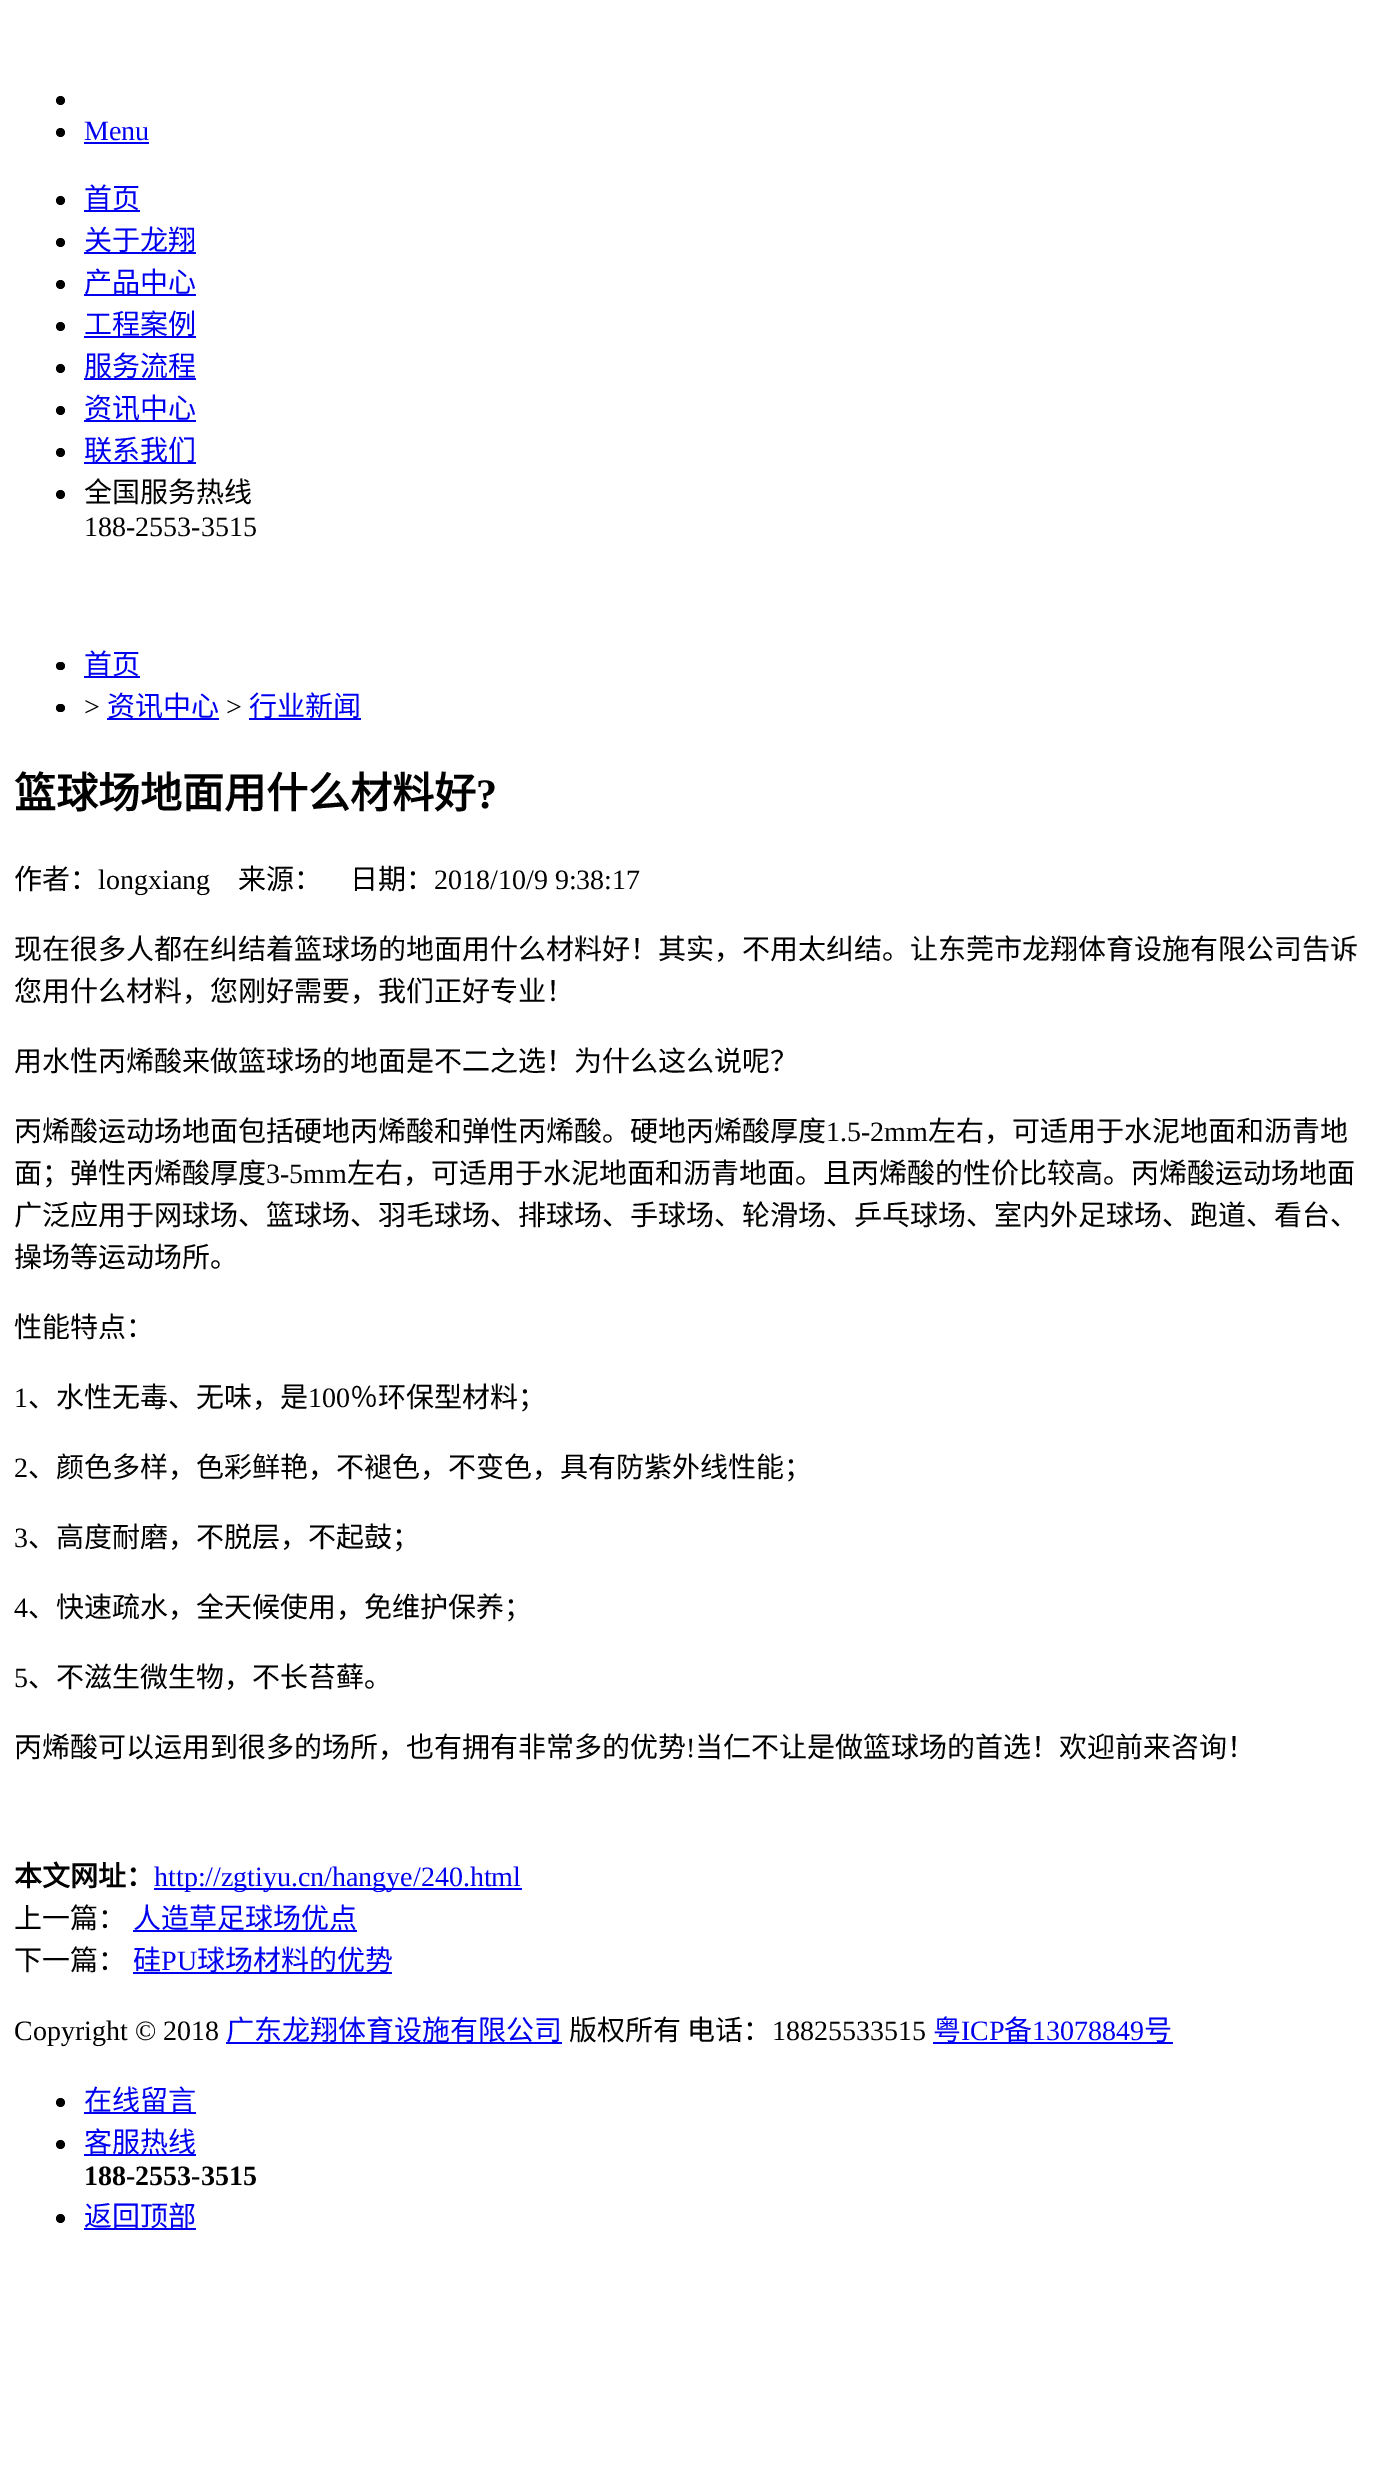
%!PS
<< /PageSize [1396 2476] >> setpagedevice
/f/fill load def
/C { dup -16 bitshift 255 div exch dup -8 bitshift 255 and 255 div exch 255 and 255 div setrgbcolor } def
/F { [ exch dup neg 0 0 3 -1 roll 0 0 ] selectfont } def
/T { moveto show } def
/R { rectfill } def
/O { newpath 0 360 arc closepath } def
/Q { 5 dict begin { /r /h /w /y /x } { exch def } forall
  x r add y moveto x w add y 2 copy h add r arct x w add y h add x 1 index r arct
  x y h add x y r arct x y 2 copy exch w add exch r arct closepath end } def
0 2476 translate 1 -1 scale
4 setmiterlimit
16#FFFFFF C
0 0 1396 2476 R
16#000000 C
60.5 100.5 4.5 O f
60.5 132.5 4.5 O f
/LiberationSerif-Regular 28 F
16#0000EE C
(Menu) 84 140 T
84 142 65 2 R
16#000000 C
60.5 200.5 4.5 O f
16#0000EE C
84 210 56 2 R
/NotoSansCJKSC-Regular 28 F
(首页) 84 208 T
16#000000 C
60.5 242.5 4.5 O f
16#0000EE C
84 252 112 2 R
(关于龙翔) 84 250 T
16#000000 C
60.5 284.5 4.5 O f
16#0000EE C
84 294 112 2 R
(产品中心) 84 292 T
16#000000 C
60.5 326.5 4.5 O f
16#0000EE C
84 336 112 2 R
(工程案例) 84 334 T
16#000000 C
60.5 368.5 4.5 O f
16#0000EE C
84 378 112 2 R
(服务流程) 84 376 T
16#000000 C
60.5 410.5 4.5 O f
16#0000EE C
84 420 112 2 R
(资讯中心) 84 418 T
16#000000 C
60.5 452.5 4.5 O f
16#0000EE C
84 462 112 2 R
(联系我们) 84 460 T
16#000000 C
60.5 494.5 4.5 O f
(全国服务热线) 84 502 T
/LiberationSerif-Regular 28 F
(188-2553-3515) 84 536 T
56 662 9 8 4 Q f
16#0000EE C
84 676 56 2 R
/NotoSansCJKSC-Regular 28 F
(首页) 84 674 T
16#000000 C
56 704 9 8 4 Q f
/LiberationSerif-Regular 28 F
(>) 84 716 T
16#0000EE C
107 718 112 2 R
/NotoSansCJKSC-Regular 28 F
(资讯中心) 107 716 T
/LiberationSerif-Regular 28 F
16#000000 C
(>) 226 716 T
16#0000EE C
249 718 112 2 R
/NotoSansCJKSC-Regular 28 F
(行业新闻) 249 716 T
/NotoSansCJKSC-Bold 42 F
16#000000 C
(篮球场地面用什么材料好) 14 808 T
/LiberationSerif-Bold 42 F
(?) 476 808 T
/NotoSansCJKSC-Regular 28 F
(作者：) 14 889 T
/LiberationSerif-Regular 28 F
(longxiang) 98 889 T
/NotoSansCJKSC-Regular 28 F
(来源：　日期：) 238 889 T
/LiberationSerif-Regular 28 F
(2018/10/9 9:38:17) 434 889 T
/NotoSansCJKSC-Regular 28 F
(现在很多人都在纠结着篮球场的地面用什么材料好！其实，不用太纠结。让东莞市龙翔体育设施有限公司告诉) 14 959 T
(您用什么材料，您刚好需要，我们正好专业！) 14 1001 T
(用水性丙烯酸来做篮球场的地面是不二之选！为什么这么说呢？) 14 1071 T
(丙烯酸运动场地面包括硬地丙烯酸和弹性丙烯酸。硬地丙烯酸厚度) 14 1141 T
/LiberationSerif-Regular 28 F
(1.5-2mm) 826 1141 T
/NotoSansCJKSC-Regular 28 F
(左右，可适用于水泥地面和沥青地) 928 1141 T
(面；弹性丙烯酸厚度) 14 1183 T
/LiberationSerif-Regular 28 F
(3-5mm) 266 1183 T
/NotoSansCJKSC-Regular 28 F
(左右，可适用于水泥地面和沥青地面。且丙烯酸的性价比较高。丙烯酸运动场地面) 347 1183 T
(广泛应用于网球场、篮球场、羽毛球场、排球场、手球场、轮滑场、乒乓球场、室内外足球场、跑道、看台、) 14 1225 T
(操场等运动场所。) 14 1267 T
(性能特点：) 14 1337 T
/LiberationSerif-Regular 28 F
(1) 14 1407 T
/NotoSansCJKSC-Regular 28 F
(、水性无毒、无味，是) 28 1407 T
/LiberationSerif-Regular 28 F
(100) 308 1407 T
/NotoSansCJKSC-Regular 28 F
(％环保型材料；) 350 1407 T
/LiberationSerif-Regular 28 F
(2) 14 1477 T
/NotoSansCJKSC-Regular 28 F
(、颜色多样，色彩鲜艳，不褪色，不变色，具有防紫外线性能；) 28 1477 T
/LiberationSerif-Regular 28 F
(3) 14 1547 T
/NotoSansCJKSC-Regular 28 F
(、高度耐磨，不脱层，不起鼓；) 28 1547 T
/LiberationSerif-Regular 28 F
(4) 14 1617 T
/NotoSansCJKSC-Regular 28 F
(、快速疏水，全天候使用，免维护保养；) 28 1617 T
/LiberationSerif-Regular 28 F
(5) 14 1687 T
/NotoSansCJKSC-Regular 28 F
(、不滋生微生物，不长苔藓。) 28 1687 T
(丙烯酸可以运用到很多的场所，也有拥有非常多的优势) 14 1757 T
/LiberationSerif-Regular 28 F
(!) 686 1757 T
/NotoSansCJKSC-Regular 28 F
(当仁不让是做篮球场的首选！欢迎前来咨询！) 695 1757 T
/NotoSansCJKSC-Bold 28 F
(本文网址：) 14 1886 T
16#0000EE C
154 1888 368 2 R
/LiberationSerif-Regular 28 F
(http://zgtiyu.cn/hangye/240.html) 154 1886 T
/NotoSansCJKSC-Regular 28 F
16#000000 C
(上一篇：) 14 1928 T
16#0000EE C
133 1930 224 2 R
(人造草足球场优点) 133 1928 T
16#000000 C
(下一篇：) 14 1970 T
16#0000EE C
(硅) 133 1970 T
/LiberationSerif-Regular 28 F
(PU) 161 1970 T
133 1972 259 2 R
/NotoSansCJKSC-Regular 28 F
(球场材料的优势) 197 1970 T
/LiberationSerif-Regular 28 F
16#000000 C
(Copyright © 2018) 14 2040 T
16#0000EE C
226 2042 336 2 R
/NotoSansCJKSC-Regular 28 F
(广东龙翔体育设施有限公司) 226 2040 T
16#000000 C
(版权所有 电话：) 569 2040 T
/LiberationSerif-Regular 28 F
(18825533515) 772 2040 T
/NotoSansCJKSC-Regular 28 F
16#0000EE C
(粤) 933 2040 T
/LiberationSerif-Regular 28 F
(ICP) 961 2040 T
933 2042 240 2 R
/NotoSansCJKSC-Regular 28 F
(备) 1004 2040 T
/LiberationSerif-Regular 28 F
(13078849) 1032 2040 T
/NotoSansCJKSC-Regular 28 F
(号) 1144 2040 T
16#000000 C
60.5 2102.5 4.5 O f
16#0000EE C
84 2112 112 2 R
(在线留言) 84 2110 T
16#000000 C
60.5 2144.5 4.5 O f
16#0000EE C
84 2154 112 2 R
(客服热线) 84 2152 T
/LiberationSerif-Bold 28 F
16#000000 C
(188-2553-3515) 84 2185 T
60.5 2218.5 4.5 O f
16#0000EE C
84 2228 112 2 R
/NotoSansCJKSC-Regular 28 F
(返回顶部) 84 2226 T
showpage
